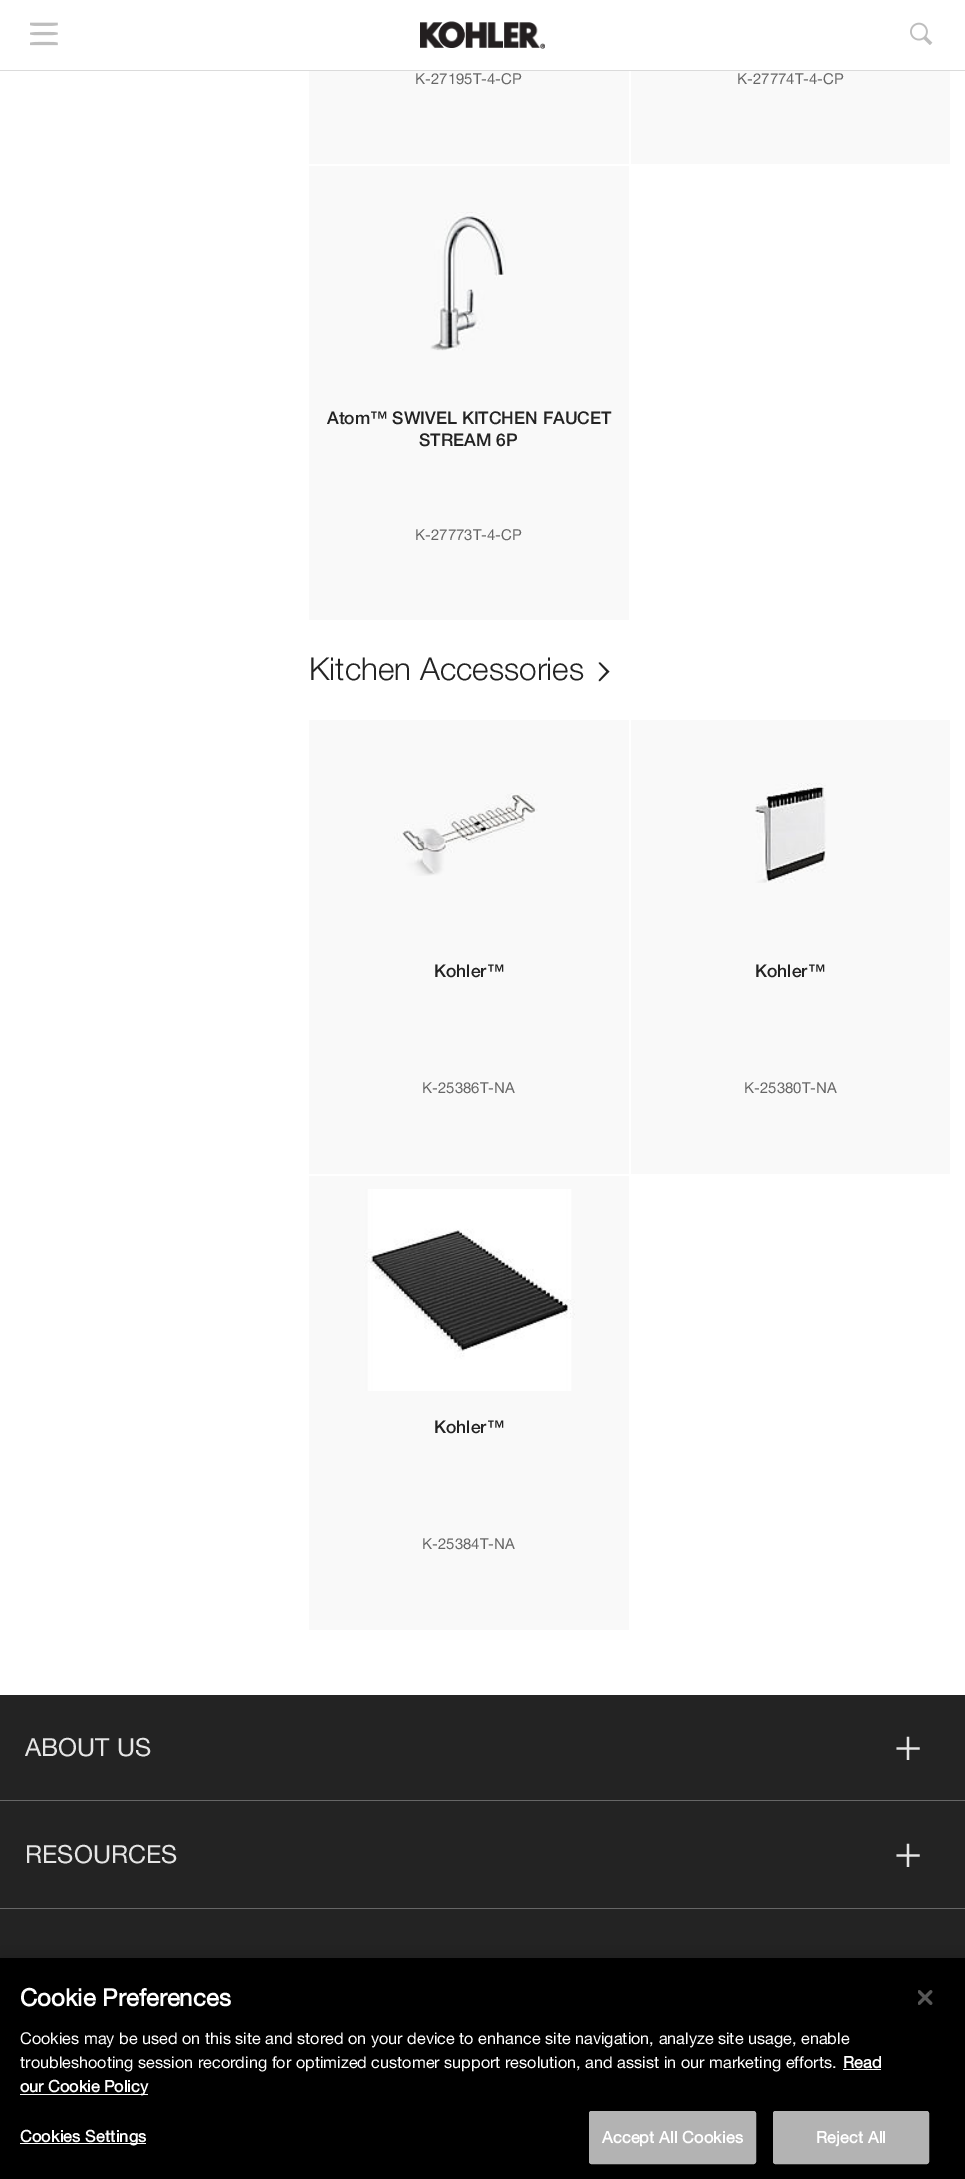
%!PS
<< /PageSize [965 2179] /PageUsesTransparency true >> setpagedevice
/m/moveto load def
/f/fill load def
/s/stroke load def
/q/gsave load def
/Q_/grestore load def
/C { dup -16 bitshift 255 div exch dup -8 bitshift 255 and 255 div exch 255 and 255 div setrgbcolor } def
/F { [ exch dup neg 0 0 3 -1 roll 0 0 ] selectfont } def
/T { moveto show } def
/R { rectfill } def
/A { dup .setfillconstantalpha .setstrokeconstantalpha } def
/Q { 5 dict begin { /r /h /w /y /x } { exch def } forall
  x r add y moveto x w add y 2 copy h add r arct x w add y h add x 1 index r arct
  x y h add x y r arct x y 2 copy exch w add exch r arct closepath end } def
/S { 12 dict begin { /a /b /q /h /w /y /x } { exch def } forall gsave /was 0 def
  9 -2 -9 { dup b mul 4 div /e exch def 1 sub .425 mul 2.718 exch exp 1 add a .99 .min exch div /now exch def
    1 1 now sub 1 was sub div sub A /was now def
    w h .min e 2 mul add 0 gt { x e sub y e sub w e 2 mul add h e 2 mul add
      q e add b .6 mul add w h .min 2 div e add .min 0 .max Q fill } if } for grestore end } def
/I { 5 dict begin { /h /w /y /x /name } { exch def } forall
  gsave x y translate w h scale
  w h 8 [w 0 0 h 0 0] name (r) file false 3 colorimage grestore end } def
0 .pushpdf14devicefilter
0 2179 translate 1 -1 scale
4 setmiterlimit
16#FFFFFF C
0 0 965 2179 R
16#DBDBDB C
0 70 965 1 R
(1.rgb) 30 22 28 24 I
(2.rgb) 420 21 125 28 I
(3.rgb) 910 22 23 23 I
16#F9F9F9 C
309 71 320 93 R
/Helvetica-Regular 15 F
16#666666 C
(K-27195T-4-CP) 415 84 T
16#F9F9F9 C
631 71 319 93 R
16#666666 C
(K-27774T-4-CP) 737 84 T
16#F9F9F9 C
309 166 320 454 R
(4.rgb) 430 212 76 139 I
/Helvetica-Medium 17.5 F
16#232323 C
(Atom™ SWIVEL KITCHEN FAUCET) 327 424 T
(STREAM 6P) 419 446 T
/Helvetica-Regular 15 F
16#666666 C
(K-27773T-4-CP) 415 540 T
/Helvetica-Light 31.5 F
16#232323 C
(Kitchen Accessories) 309 680 T
(5.rgb) 598 662 12 20 I
16#F9F9F9 C
309 720 320 454 R
(6.rgb) 394 793 144 83 I
/Helvetica-Medium 17.5 F
16#232323 C
(Kohler™) 434 977 T
/Helvetica-Regular 15 F
16#666666 C
(K-25386T-NA) 422 1093 T
16#F9F9F9 C
631 720 319 454 R
(7.rgb) 755 783 72 100 I
/Helvetica-Medium 17.5 F
16#232323 C
(Kohler™) 755 977 T
/Helvetica-Regular 15 F
16#666666 C
(K-25380T-NA) 744 1093 T
16#F9F9F9 C
309 1176 320 454 R
(8.rgb) 364 1189 211 202 I
/Helvetica-Medium 17.5 F
16#232323 C
(Kohler™) 434 1433 T
/Helvetica-Regular 15 F
16#666666 C
(K-25384T-NA) 422 1549 T
16#232323 C
0 1695 965 263 R
16#666666 C
0 1800 965 1 R
/Helvetica-Regular 25 F
16#E5E5E5 C
(ABOUT US) 25 1756 T
/LiberationSerif-Regular 50 F
(+) 894 1765 T
16#666666 C
0 1908 965 1 R
/Helvetica-Regular 25 F
16#E5E5E5 C
(RESOURCES) 25 1863 T
/LiberationSerif-Regular 50 F
(+) 894 1872 T
16#000000 C
0 1958 965 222 0 11 .2 S
0 1958 965 221 R
/Helvetica-Bold 24 F
16#FFFFFF C
(Cookie Preferences) 20 2006 T
/Helvetica-Regular 16.25 F
(Cookies may be used on this site and stored on your device to enhance site navigation, analyze site usage, enable) 20 2044 T
(troubleshooting session recording for optimized customer support resolution, and assist in our marketing efforts.) 20 2068 T
/Helvetica-Bold 16.25 F
(Read) 843 2068 T
16#FAFAFA C
843 2069 38 1 R
20 2094 128 1 R
16#FFFFFF C
(our Cookie Policy) 20 2092 T
20 2143 126 1 R
20 2142 m .2 0 (Cookies Settings) ashow
16#B3B3B3 C
589.5 2111.5 166 52 2 Q q f Q_
s
16#FFFFFF C
602 2143 m .2 0 (Accept All Cookies) ashow
16#B3B3B3 C
773.5 2111.5 155 52 2 Q q f Q_
s
16#FFFFFF C
816 2143 m .2 0 (Reject All) ashow
(9.rgb) 918 1990 15 15 I
.poppdf14devicefilter showpage
